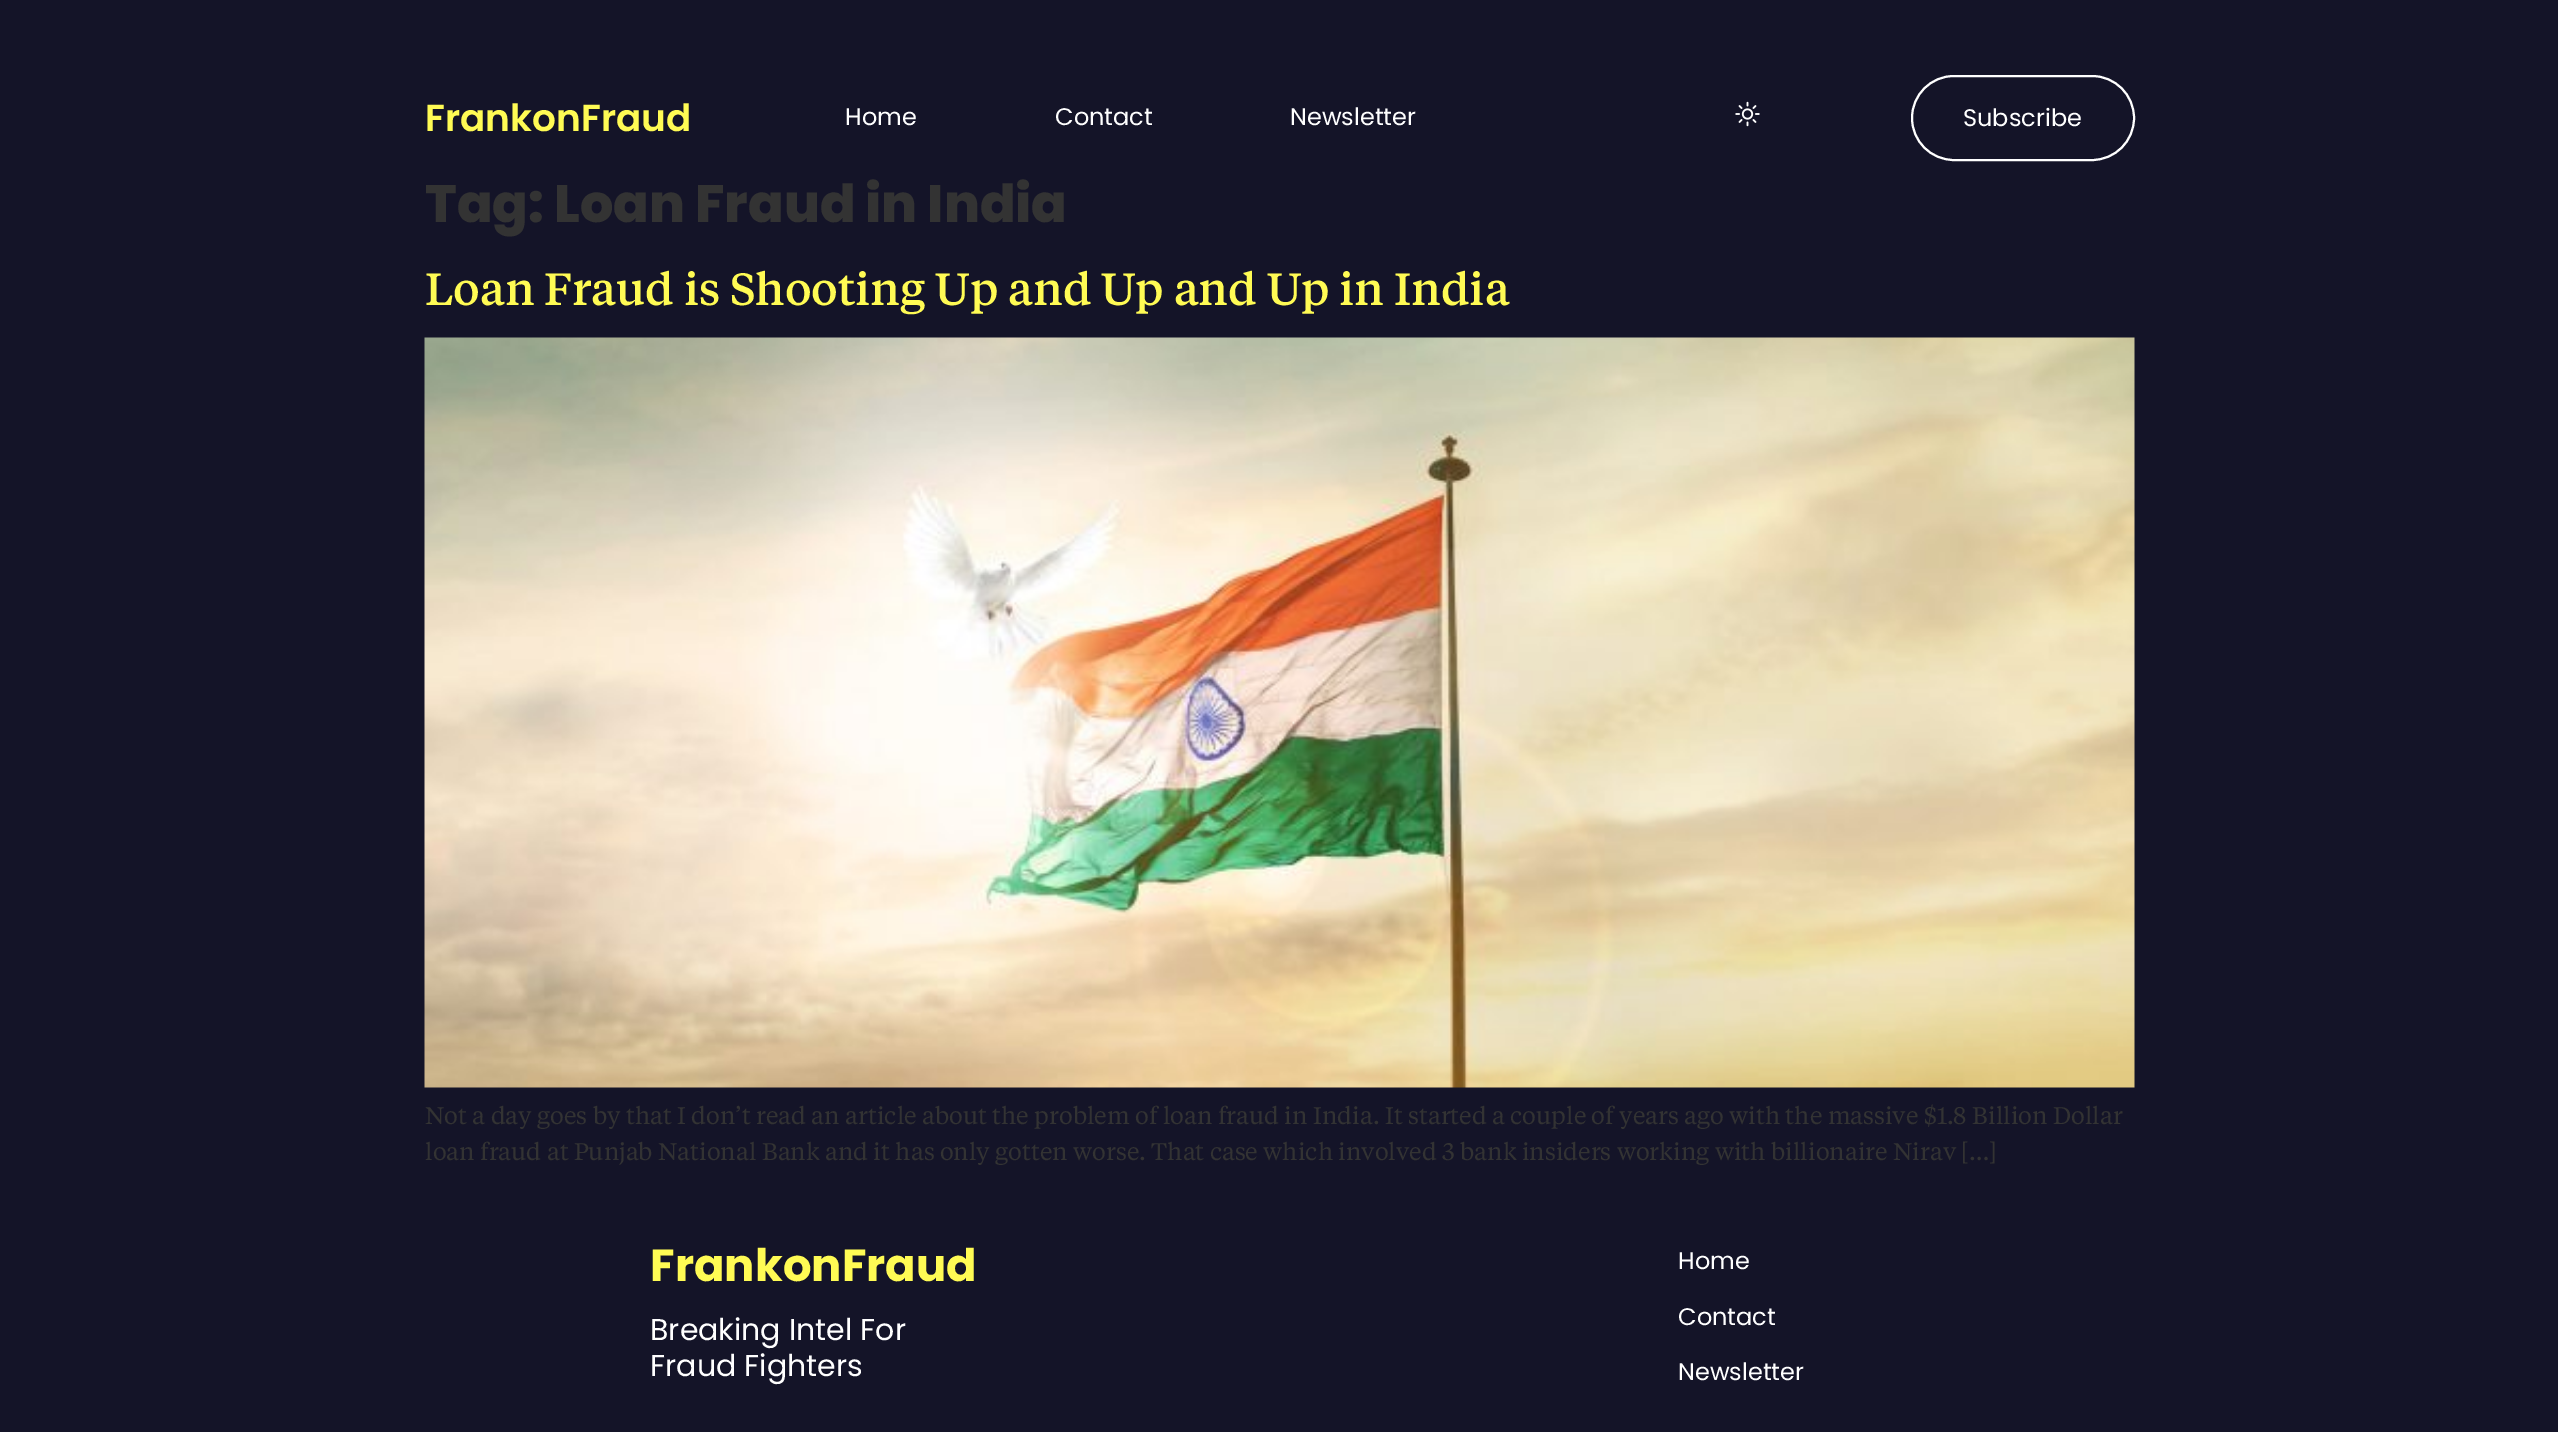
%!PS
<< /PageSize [2558 1432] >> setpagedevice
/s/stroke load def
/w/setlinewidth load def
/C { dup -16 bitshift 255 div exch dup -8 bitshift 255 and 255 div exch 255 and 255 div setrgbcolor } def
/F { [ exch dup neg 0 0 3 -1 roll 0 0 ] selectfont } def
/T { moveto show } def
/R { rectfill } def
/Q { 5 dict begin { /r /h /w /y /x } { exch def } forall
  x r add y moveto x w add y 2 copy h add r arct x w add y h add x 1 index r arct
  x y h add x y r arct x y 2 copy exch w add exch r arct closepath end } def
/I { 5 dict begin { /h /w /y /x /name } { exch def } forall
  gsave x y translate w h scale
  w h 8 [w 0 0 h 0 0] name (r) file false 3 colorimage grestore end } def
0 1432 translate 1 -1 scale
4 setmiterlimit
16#141428 C
0 0 2558 1432 R
/Poppins-SemiBold 37.5 F
16#FFFB54 C
(FrankonFraud) 425 131 T
/Poppins-Regular 24 F
16#FFFFFF C
(Home) 845 125 T
(Contact) 1055 125 T
(Newsletter) 1290 125 T
(1.rgb) 1735 101 25 26 I
2 w
1912 76 222 84 42 Q s
(Subscribe) 1963 126 T
/Poppins-ExtraBold 52.5 F
16#333333 C
(Tag: Loan Fraud in India) 425 222 T
/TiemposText-Medium 45 F
16#FFFB54 C
(Loan Fraud is Shooting Up and Up and Up in India) 425 305 T
(2.rgb) 424 337 1711 751 I
/TiemposText-Regular 24 F
16#333333 C
(Not a day goes by that I don’t read an article about the problem of loan fraud in India. It started a couple of years ago with the massive $1.8 Billion Dollar) 425 1124 T
(loan fraud at Punjab National Bank and it has only gotten worse. That case which involved 3 bank insiders working with billionaire Nirav […]) 425 1160 T
/Poppins-Bold 45 F
16#FFFB54 C
(FrankonFraud) 650 1281 T
/Poppins-Regular 30 F
16#FFFFFF C
(Breaking Intel For) 650 1340 T
(Fraud Fighters) 650 1376 T
/Poppins-Regular 24 F
(Home) 1678 1269 T
(Contact) 1678 1325 T
(Newsletter) 1678 1380 T
showpage
